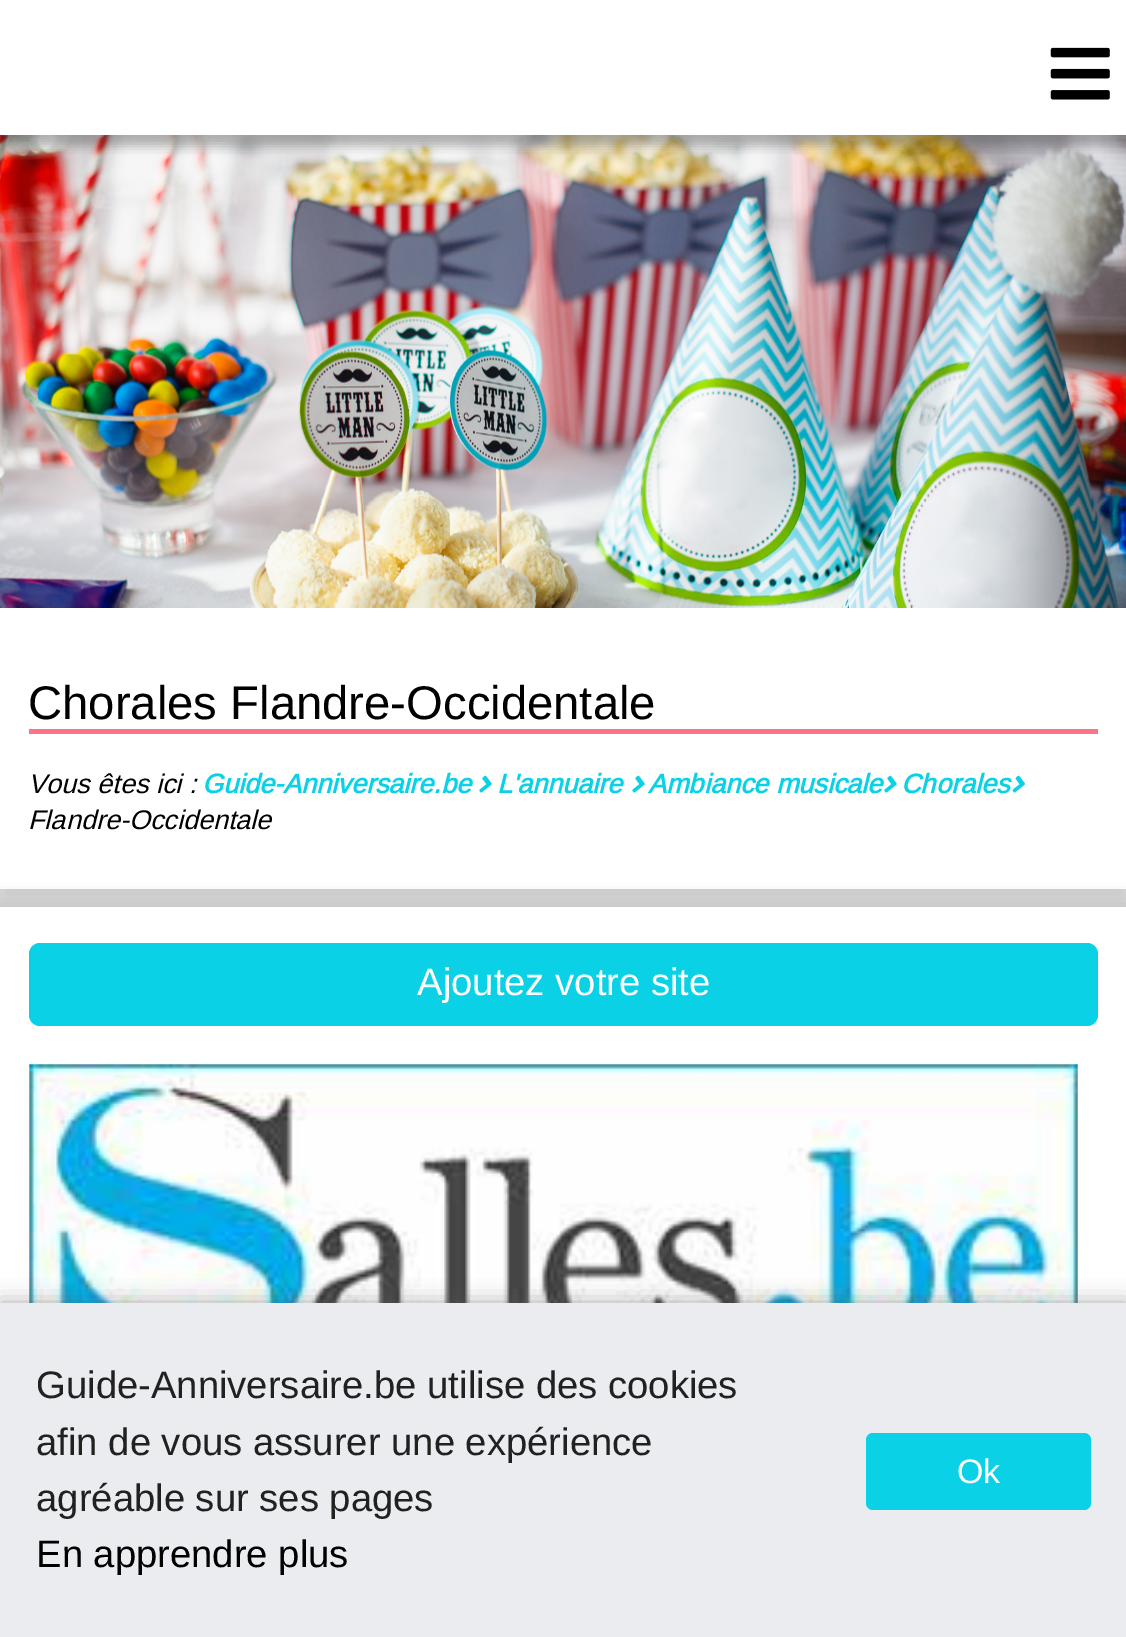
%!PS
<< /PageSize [1126 1637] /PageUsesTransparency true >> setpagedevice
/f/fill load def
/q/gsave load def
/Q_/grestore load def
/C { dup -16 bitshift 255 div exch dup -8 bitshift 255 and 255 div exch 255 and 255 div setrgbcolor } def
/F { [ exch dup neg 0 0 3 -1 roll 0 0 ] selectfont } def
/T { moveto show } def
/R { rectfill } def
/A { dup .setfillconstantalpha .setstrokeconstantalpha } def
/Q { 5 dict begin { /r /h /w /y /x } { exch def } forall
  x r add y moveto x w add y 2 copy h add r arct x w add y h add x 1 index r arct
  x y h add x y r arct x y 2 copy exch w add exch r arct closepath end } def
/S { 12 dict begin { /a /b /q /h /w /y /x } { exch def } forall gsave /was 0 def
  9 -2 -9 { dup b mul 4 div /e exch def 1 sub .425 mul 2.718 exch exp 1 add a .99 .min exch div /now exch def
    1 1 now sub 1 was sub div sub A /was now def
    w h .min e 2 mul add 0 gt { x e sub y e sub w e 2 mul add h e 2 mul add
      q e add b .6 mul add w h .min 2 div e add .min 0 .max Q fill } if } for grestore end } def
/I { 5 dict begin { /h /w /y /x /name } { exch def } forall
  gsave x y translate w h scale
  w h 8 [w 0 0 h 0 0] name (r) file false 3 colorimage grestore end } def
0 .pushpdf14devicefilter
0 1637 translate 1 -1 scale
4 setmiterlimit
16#FFFFFF C
0 0 1126 1637 R
16#E4E4E4 C
0 889 1126 18 R
16#C5C5C5 C
2 621 1123 277 0 11 1 S
(2.rgb) 0 135 1126 473 I
q
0 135 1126 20 rectclip
16#424242 C
0 11 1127 135 0 5.5 .4 S
Q_
(1.rgb) 1050 47 60 53 I
16#FFFFFF C
0 608 1126 281 R
16#FF7485 C
29 729 1069 5 R
/LiberationSans-Regular 47.25 F
16#000000 C
(Chorales Flandre-Occidentale) 28 719 T
/LiberationSans-Italic 27 F
(Vous êtes ici :) 28 793 T
/LiberationSans-BoldItalic 27 F
16#0BD1E6 C
(Guide-Anniversaire.be) 202 793 T
(3.rgb) 479 775 13 18 I
(L'annuaire) 497 793 T
(3.rgb) 632 775 13 18 I
(Ambiance musicale) 648 793 T
(3.rgb) 884 775 13 18 I
(Chorales) 901 793 T
(4.rgb) 1012 775 13 18 I
/LiberationSans-Italic 27 F
16#000000 C
(Flandre-Occidentale) 28 829 T
16#C5C5C5 C
-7 900 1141 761 0 8 1 S
16#FFFFFF C
0 907 1126 396 R
16#0BD1E6 C
29 943 1069 83 11 Q f
/LiberationSans-Regular 38.25 F
16#FFFFFF C
(Ajoutez votre site) 417 995 T
(5.rgb) 29 1064 1049 239 I
16#575756 C
0 1303 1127 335 0 11 .5 S
16#EBECEF C
0 1303 1126 334 R
/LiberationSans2-Regular 38.25 F
16#212121 C
(Guide-Anniversaire.be utilise des cookies) 36 1398 T
(afin de vous assurer une expérience) 36 1455 T
(agréable sur ses pages) 36 1511 T
16#000000 C
(En apprendre plus) 36 1567 T
16#0BD1E6 C
866 1433 225 77 7 Q f
/LiberationSans-Regular 34 F
16#FFFFFF C
(Ok) 957 1483 T
.poppdf14devicefilter showpage
